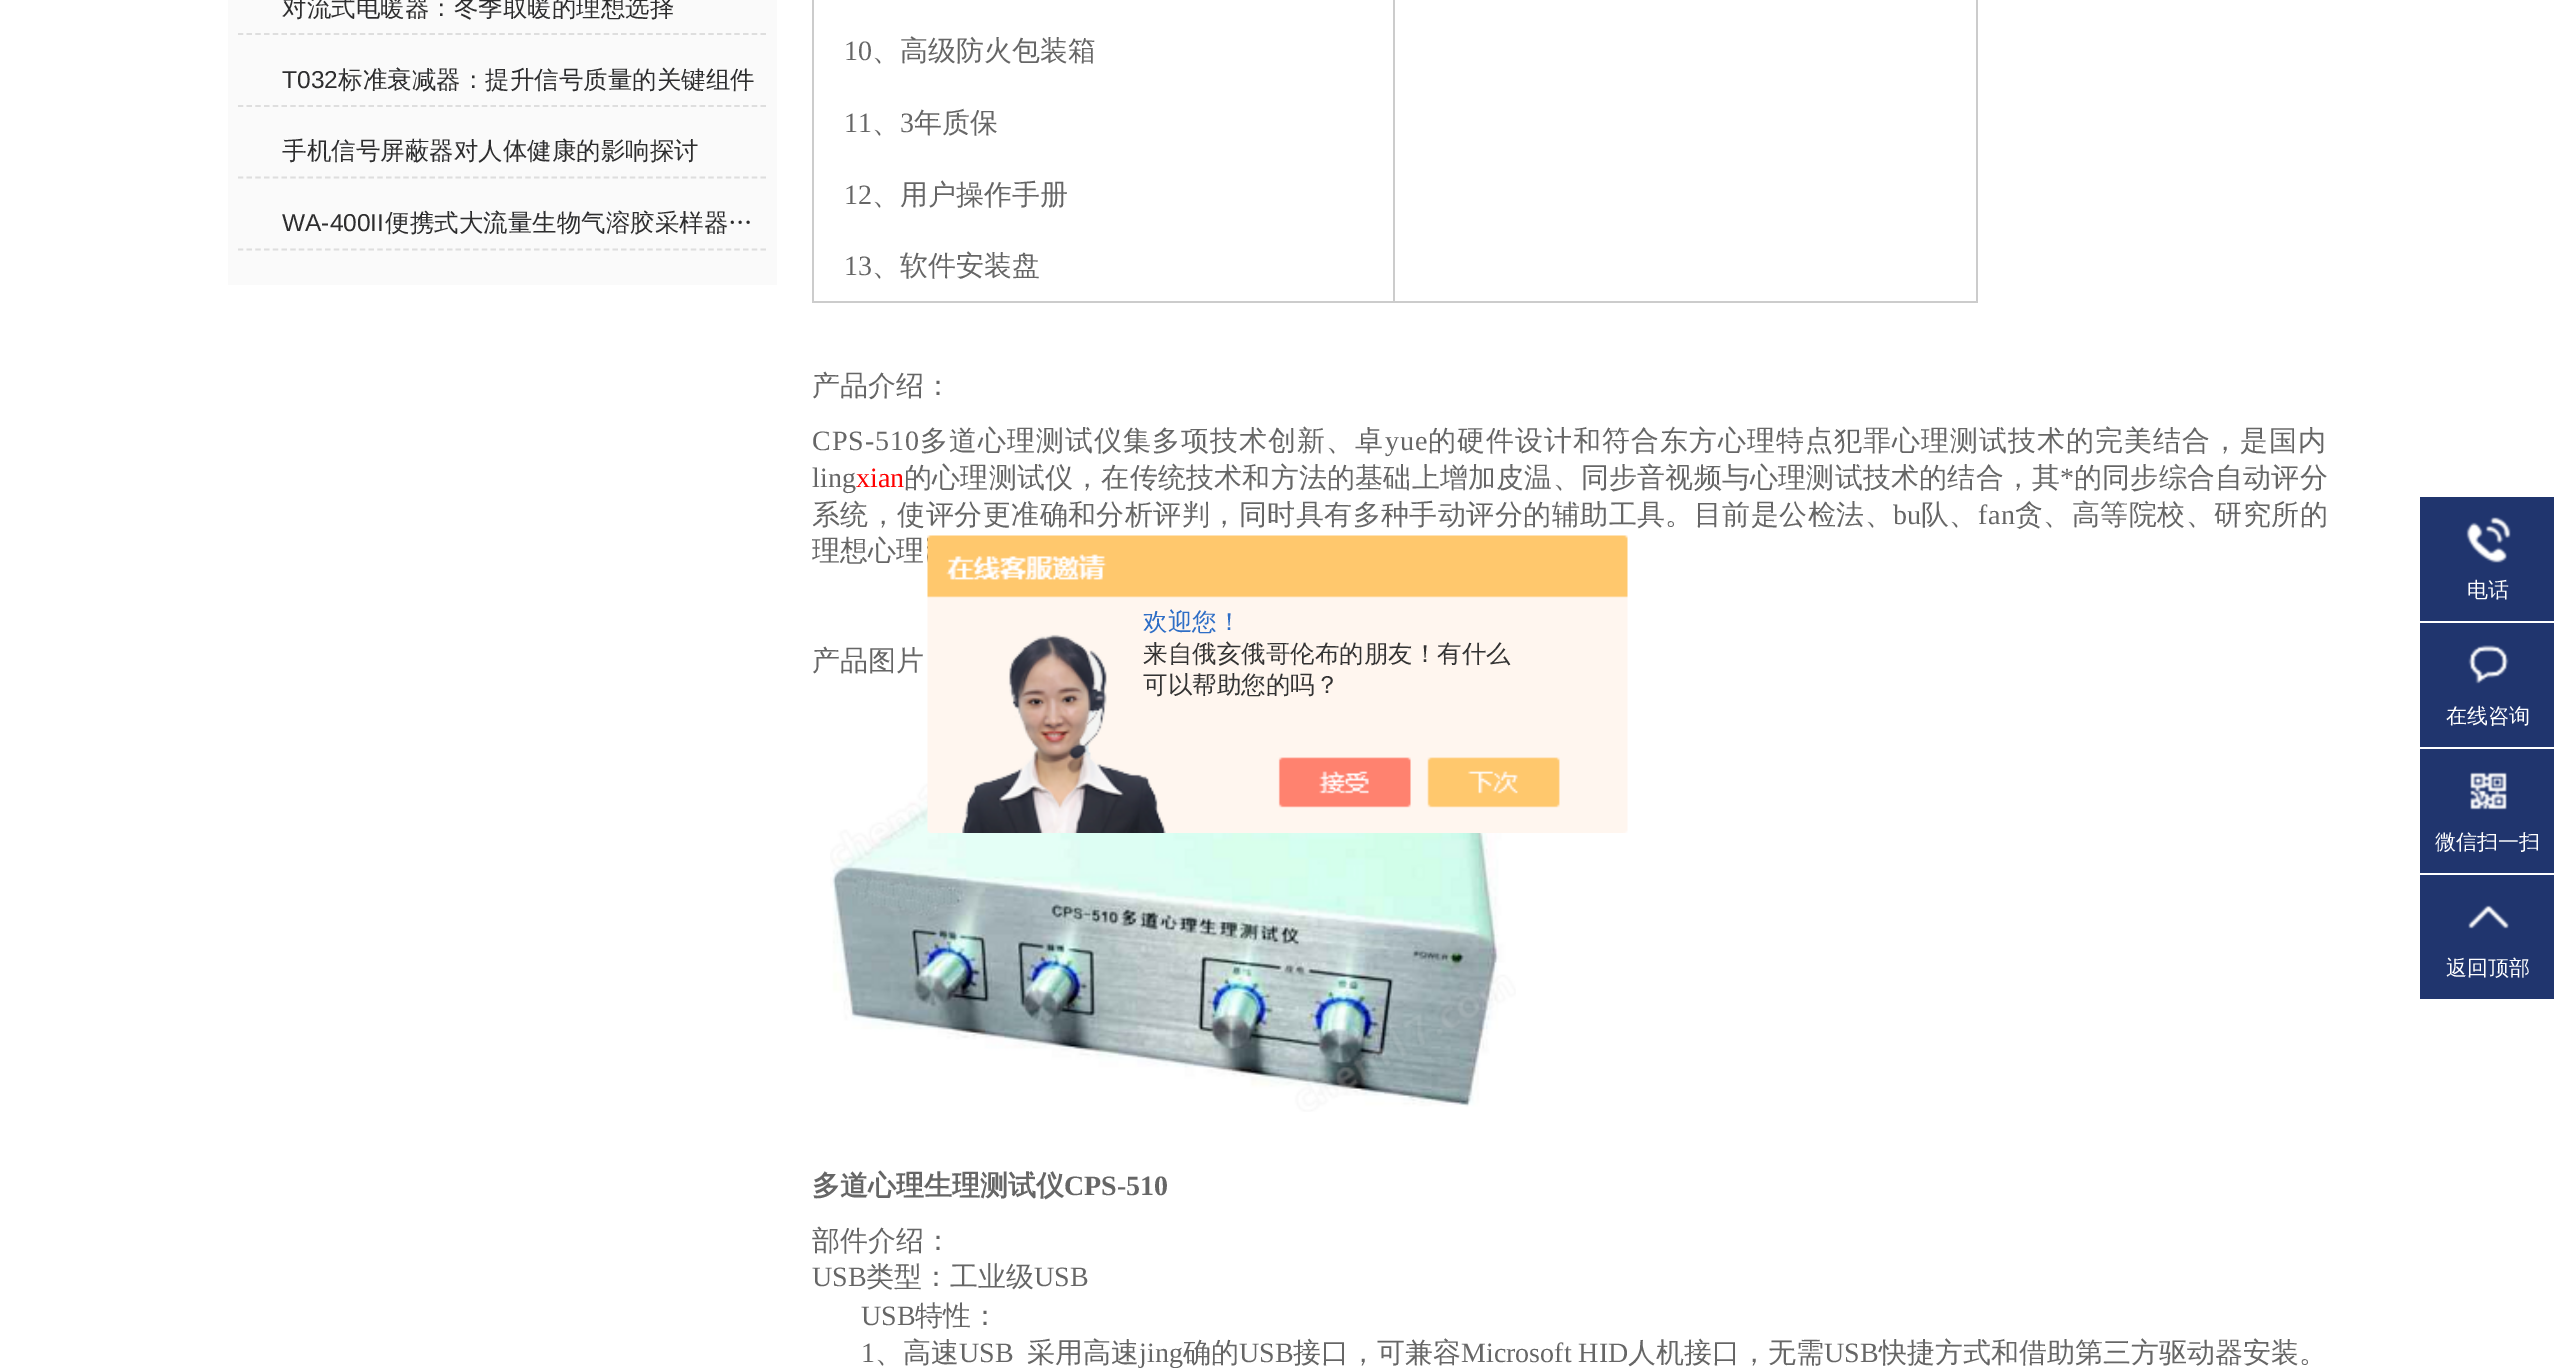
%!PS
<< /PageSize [2554 1368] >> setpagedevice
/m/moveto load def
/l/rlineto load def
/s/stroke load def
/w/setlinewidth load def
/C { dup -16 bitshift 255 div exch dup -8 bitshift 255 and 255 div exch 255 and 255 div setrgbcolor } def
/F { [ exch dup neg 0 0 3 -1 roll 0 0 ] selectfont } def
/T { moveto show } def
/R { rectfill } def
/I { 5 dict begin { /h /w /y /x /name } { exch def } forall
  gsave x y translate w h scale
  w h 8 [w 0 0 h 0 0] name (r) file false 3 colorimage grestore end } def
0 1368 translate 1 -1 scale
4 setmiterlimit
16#FFFFFF C
0 0 2554 1368 R
16#FAFAFA C
228 0 549 285 R
16#DEDEDE C
1.8 w
[5.25 3.46] 0 setdash
238 34 m 528.5 0 l s
/WenQuanYiZenHei-Medium 24.5 F
16#2D2D2E C
(对流式电暖器：冬季取暖的理想选择) 282 16 T
16#DEDEDE C
238 106 m 528.5 0 l s
/LiberationSans-Regular 24.5 F
16#2D2D2E C
(T032) 282 88 T
/WenQuanYiZenHei-Medium 24.5 F
(标准衰减器：提升信号质量的关键组件) 338 88 T
16#DEDEDE C
238 177.5 m 528.5 0 l s
16#2D2D2E C
(手机信号屏蔽器对人体健康的影响探讨) 282 159 T
16#DEDEDE C
238 249.5 m 528.5 0 l s
/LiberationSans-Regular 24.5 F
16#2D2D2E C
(WA-400II) 282 231 T
/WenQuanYiZenHei-Medium 24.5 F
(便携式大流量生物气溶胶采样器…) 385 231 T
16#CCCCCC C
1976 0 2 303 R
1393 301 585 2 R
1393 0 2 303 R
812 301 583 2 R
812 0 2 303 R
/LiberationSerif-Regular 28 F
16#666666 C
(10) 844 60 T
/WenQuanYiZenHei-Medium 28 F
(、高级防火包装箱) 872 60 T
/LiberationSerif-Regular 28 F
(11) 844 132 T
/WenQuanYiZenHei-Medium 28 F
(、) 872 132 T
/LiberationSerif-Regular 28 F
(3) 900 132 T
/WenQuanYiZenHei-Medium 28 F
(年质保) 914 132 T
/LiberationSerif-Regular 28 F
(12) 844 204 T
/WenQuanYiZenHei-Medium 28 F
(、用户操作手册) 872 204 T
/LiberationSerif-Regular 28 F
(13) 844 275 T
/WenQuanYiZenHei-Medium 28 F
(、软件安装盘) 872 275 T
(产品介绍：) 812 395 T
/LiberationSerif-Regular 28 F
812 450 m 1 0 (CPS-510) ashow
/WenQuanYiZenHei-Medium 28 F
920 450 m 1 0 (多道心理测试仪集多项技术创新、卓) ashow
/LiberationSerif-Regular 28 F
1385 450 m 1 0 (yue) ashow
/WenQuanYiZenHei-Medium 28 F
1428 450 m 1 0 (的硬件设计和符合东方心理特点犯罪心理测试技术的完美结合，是国内) ashow
/LiberationSerif-Regular 28 F
(ling) 812 487 T
16#FF0000 C
(xian) 856 487 T
/WenQuanYiZenHei-Medium 28 F
16#666666 C
904 487 m .2 0 (的心理测试仪，在传统技术和方法的基础上增加皮温、同步音视频与心理测试技术的结合，其) ashow
/LiberationSerif-Regular 28 F
2060 487 m .2 0 (*) ashow
/WenQuanYiZenHei-Medium 28 F
2074 487 m .2 0 (的同步综合自动评分) ashow
812 524 m .45 0 (系统，使评分更准确和分析评判，同时具有多种手动评分的辅助工具。目前是公检法、) ashow
/LiberationSerif-Regular 28 F
1893 524 m .45 0 (bu) ashow
/WenQuanYiZenHei-Medium 28 F
1921 524 m .45 0 (队、) ashow
/LiberationSerif-Regular 28 F
1978 524 m .45 0 (fan) ashow
/WenQuanYiZenHei-Medium 28 F
2015 524 m .45 0 (贪) ashow
2043 524 m .5 0 (、高等院校、研究所的) ashow
(理想心理) 812 560 T
(产品图片) 812 670 T
(1.rgb) 830 731 686 381 I
/WenQuanYiZenHei-Bold 28 F
(多道心理生理测试仪) 812 1195 T
/LiberationSerif-Bold 28 F
(CPS-510) 1064 1195 T
/WenQuanYiZenHei-Medium 28 F
(部件介绍：) 812 1250 T
/LiberationSerif-Regular 28 F
(USB) 812 1286 T
/WenQuanYiZenHei-Medium 28 F
(类型：工业级) 866 1286 T
/LiberationSerif-Regular 28 F
(USB) 1034 1286 T
(USB) 861 1325 T
/WenQuanYiZenHei-Medium 28 F
(特性：) 915 1325 T
/LiberationSerif-Regular 28 F
(1) 861 1362 T
/WenQuanYiZenHei-Medium 28 F
(、高速) 875 1362 T
/LiberationSerif-Regular 28 F
(USB) 959 1362 T
/WenQuanYiZenHei-Medium 28 F
(采用高速) 1027 1362 T
/LiberationSerif-Regular 28 F
(jing) 1139 1362 T
/WenQuanYiZenHei-Medium 28 F
(确的) 1183 1362 T
/LiberationSerif-Regular 28 F
(USB) 1239 1362 T
/WenQuanYiZenHei-Medium 28 F
(接口，可兼容) 1293 1362 T
/LiberationSerif-Regular 28 F
(Microsoft HID) 1461 1362 T
/WenQuanYiZenHei-Medium 28 F
(人机接口，无需) 1628 1362 T
/LiberationSerif-Regular 28 F
(USB) 1824 1362 T
/WenQuanYiZenHei-Medium 28 F
(快捷方式和借助第三方驱动器安装。) 1879 1362 T
16#20356E C
2420 497 134 124 R
(2.rgb) 2466 517 45 46 I
/WenQuanYiZenHei-Medium 21 F
16#FFFFFF C
(电话) 2467 597 T
16#20356E C
2420 623 134 124 R
(3.rgb) 2468 645 41 39 I
16#FFFFFF C
(在线咨询) 2446 723 T
16#20356E C
2420 749 134 124 R
(4.rgb) 2470 772 37 38 I
16#FFFFFF C
(微信扫一扫) 2435 849 T
16#20356E C
2420 875 134 124 R
(5.rgb) 2468 905 41 24 I
16#FFFFFF C
(返回顶部) 2446 975 T
(6.rgb) 927 535 701 298 I
/WenQuanYiZenHei-Medium 24.5 F
16#2E6EC6 C
(欢迎您！) 1143 630 T
16#333333 C
(来自俄亥俄哥伦布的朋友！有什么) 1143 662 T
(可以帮助您的吗？) 1143 693 T
showpage
